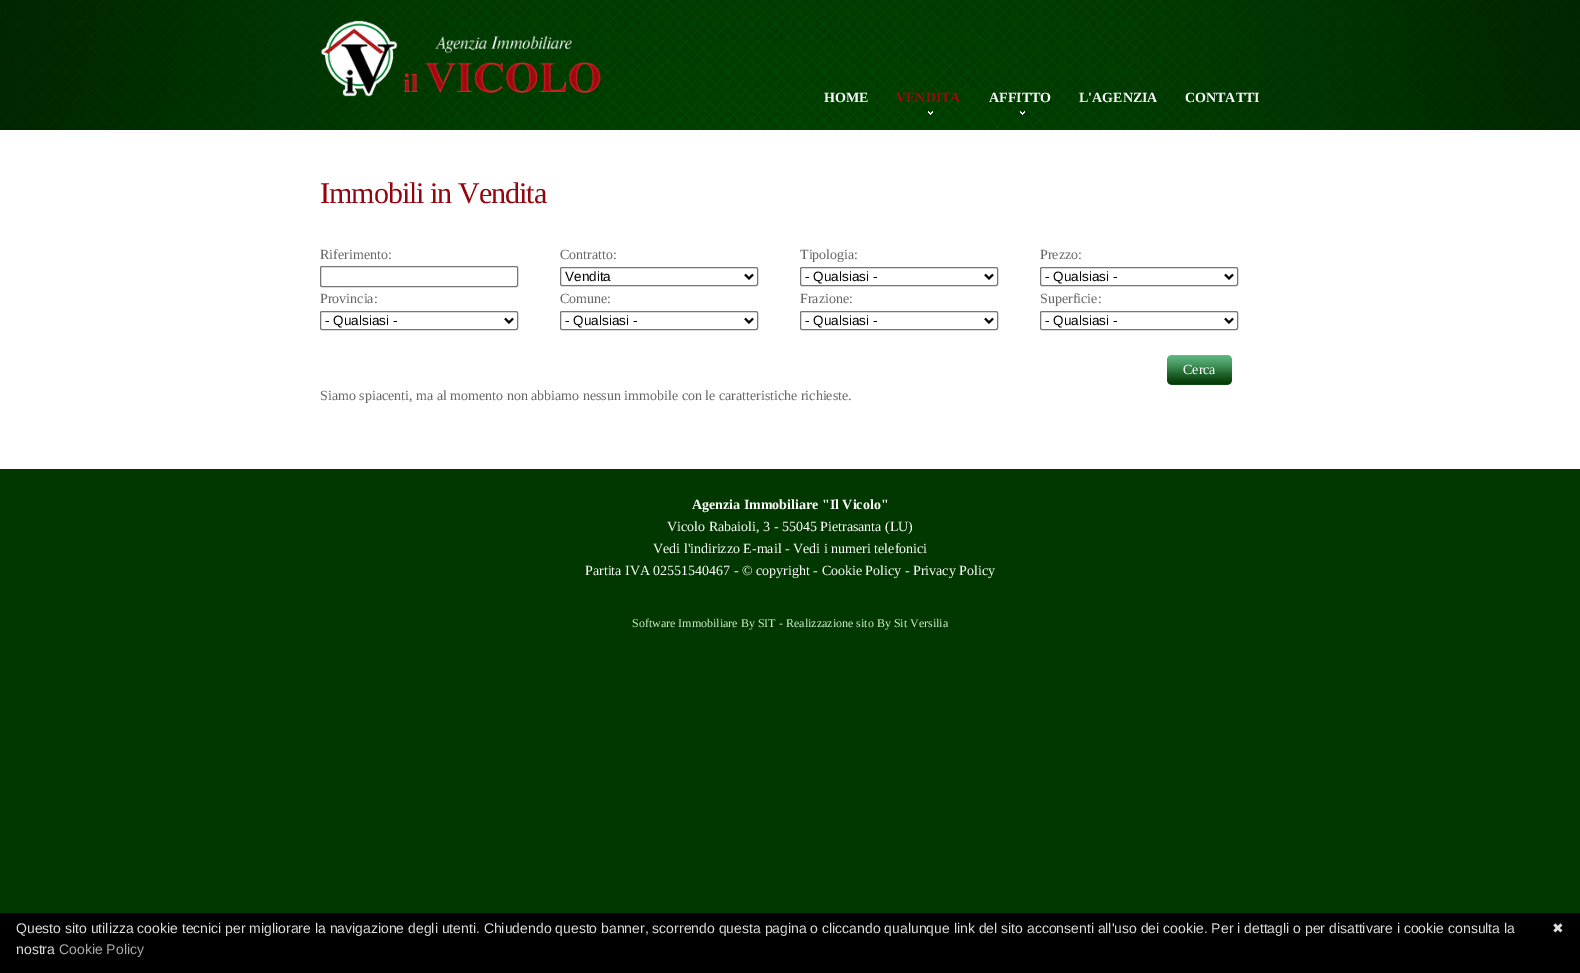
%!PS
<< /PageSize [1580 973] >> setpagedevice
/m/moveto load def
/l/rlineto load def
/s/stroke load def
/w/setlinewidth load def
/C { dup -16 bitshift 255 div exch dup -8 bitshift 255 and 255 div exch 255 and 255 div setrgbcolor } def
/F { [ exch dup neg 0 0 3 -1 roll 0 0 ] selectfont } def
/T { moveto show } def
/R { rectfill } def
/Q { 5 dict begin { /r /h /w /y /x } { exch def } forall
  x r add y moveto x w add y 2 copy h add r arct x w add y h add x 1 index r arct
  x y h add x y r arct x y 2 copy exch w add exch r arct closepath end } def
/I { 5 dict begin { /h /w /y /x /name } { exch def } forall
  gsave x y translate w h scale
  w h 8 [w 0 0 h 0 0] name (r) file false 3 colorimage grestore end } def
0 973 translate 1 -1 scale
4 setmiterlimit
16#003800 C
0 0 1580 973 R
(1.rgb) 0 0 1580 130 I
(2.rgb) 321 20 280 77 I
/LiberationSerif-Bold 14 F
16#FFFFFF C
(HOME) 824 102 T
16#A00811 C
(VENDITA) 896 102 T
(3.rgb) 928 111 5 4 I
16#FFFFFF C
(AFFITTO) 989 102 T
(4.rgb) 1020 111 5 4 I
(L'AGENZIA) 1079 102 T
(CONTATTI) 1185 102 T
0 130 1580 339 R
/LiberationSerif-Regular 30 F
16#93060F C
320 203 m -1 0 (Immobili in Vendita) ashow
/LiberationSerif-Regular 14 F
16#676767 C
(Riferimento:) 320 259 T
16#767676 C
320.5 266.5 197 20 1.5 Q s
16#676767 C
(Contratto:) 560 259 T
16#767676 C
560.5 267.5 197 18 1.5 Q s
16#000000 C
2 w
745 274.5 m 4 4 l 4 -4 l s
/LiberationSans-Regular 13.5 F
(Vendita) 565 281 T
/LiberationSerif-Regular 14 F
16#676767 C
(Tipologia:) 800 259 T
16#767676 C
1 w
800.5 267.5 197 18 1.5 Q s
16#000000 C
2 w
985 274.5 m 4 4 l 4 -4 l s
/LiberationSans-Regular 13.5 F
(- Qualsiasi -) 805 281 T
/LiberationSerif-Regular 14 F
16#676767 C
(Prezzo:) 1040 259 T
16#767676 C
1 w
1040.5 267.5 197 18 1.5 Q s
16#000000 C
2 w
1225 274.5 m 4 4 l 4 -4 l s
/LiberationSans-Regular 13.5 F
(- Qualsiasi -) 1045 281 T
/LiberationSerif-Regular 14 F
16#676767 C
(Provincia:) 320 303 T
16#767676 C
1 w
320.5 311.5 197 18 1.5 Q s
16#000000 C
2 w
505 318.5 m 4 4 l 4 -4 l s
/LiberationSans-Regular 13.5 F
(- Qualsiasi -) 325 325 T
/LiberationSerif-Regular 14 F
16#676767 C
(Comune:) 560 303 T
16#767676 C
1 w
560.5 311.5 197 18 1.5 Q s
16#000000 C
2 w
745 318.5 m 4 4 l 4 -4 l s
/LiberationSans-Regular 13.5 F
(- Qualsiasi -) 565 325 T
/LiberationSerif-Regular 14 F
16#676767 C
(Frazione:) 800 303 T
16#767676 C
1 w
800.5 311.5 197 18 1.5 Q s
16#000000 C
2 w
985 318.5 m 4 4 l 4 -4 l s
/LiberationSans-Regular 13.5 F
(- Qualsiasi -) 805 325 T
/LiberationSerif-Regular 14 F
16#676767 C
(Superficie:) 1040 303 T
16#767676 C
1 w
1040.5 311.5 197 18 1.5 Q s
16#000000 C
2 w
1225 318.5 m 4 4 l 4 -4 l s
/LiberationSans-Regular 13.5 F
(- Qualsiasi -) 1045 325 T
(5.rgb) 1167 355 65 30 I
/LiberationSerif-Regular 14 F
16#FFFFFF C
(Cerca) 1183 374 T
16#676767 C
(Siamo spiacenti, ma al momento non abbiamo nessun immobile con le caratteristiche richieste.) 320 400 T
/LiberationSerif-Bold 14 F
16#FFFFFF C
(Agenzia Immobiliare "Il Vicolo") 692 509 T
/LiberationSerif-Regular 14 F
(Vicolo Rabaioli, 3 - 55045 Pietrasanta \(LU\)) 667 531 T
(Vedi l'indirizzo E-mail - Vedi i numeri telefonici) 653 553 T
(Partita IVA 02551540467 - © copyright - Cookie Policy - Privacy Policy) 585 575 T
/LiberationSerif-Regular 12 F
16#CFEFCB C
(Software Immobiliare By SIT) 632 627 T
16#FFFFFF C
(-) 779 627 T
16#CFEFCB C
(Realizzazione sito By Sit Versilia) 786 627 T
16#000000 C
0 913 1580 60 R
/LiberationSans-Regular 14 F
16#DDDDDD C
(Questo sito utilizza cookie tecnici per migliorare la navigazione degli utenti. Chiudendo questo banner, scorrendo questa pagina o cliccando qualunque link del sito acconsenti all'uso dei cookie. Per i dettagli o per disattivare i cookie consulta la) 16 933 T
/DejaVuSans-Regular 14 F
(✖) 1552 933 T
/LiberationSans-Regular 14 F
(nostra) 16 954 T
16#AAAAAA C
(Cookie Policy) 59 954 T
showpage
